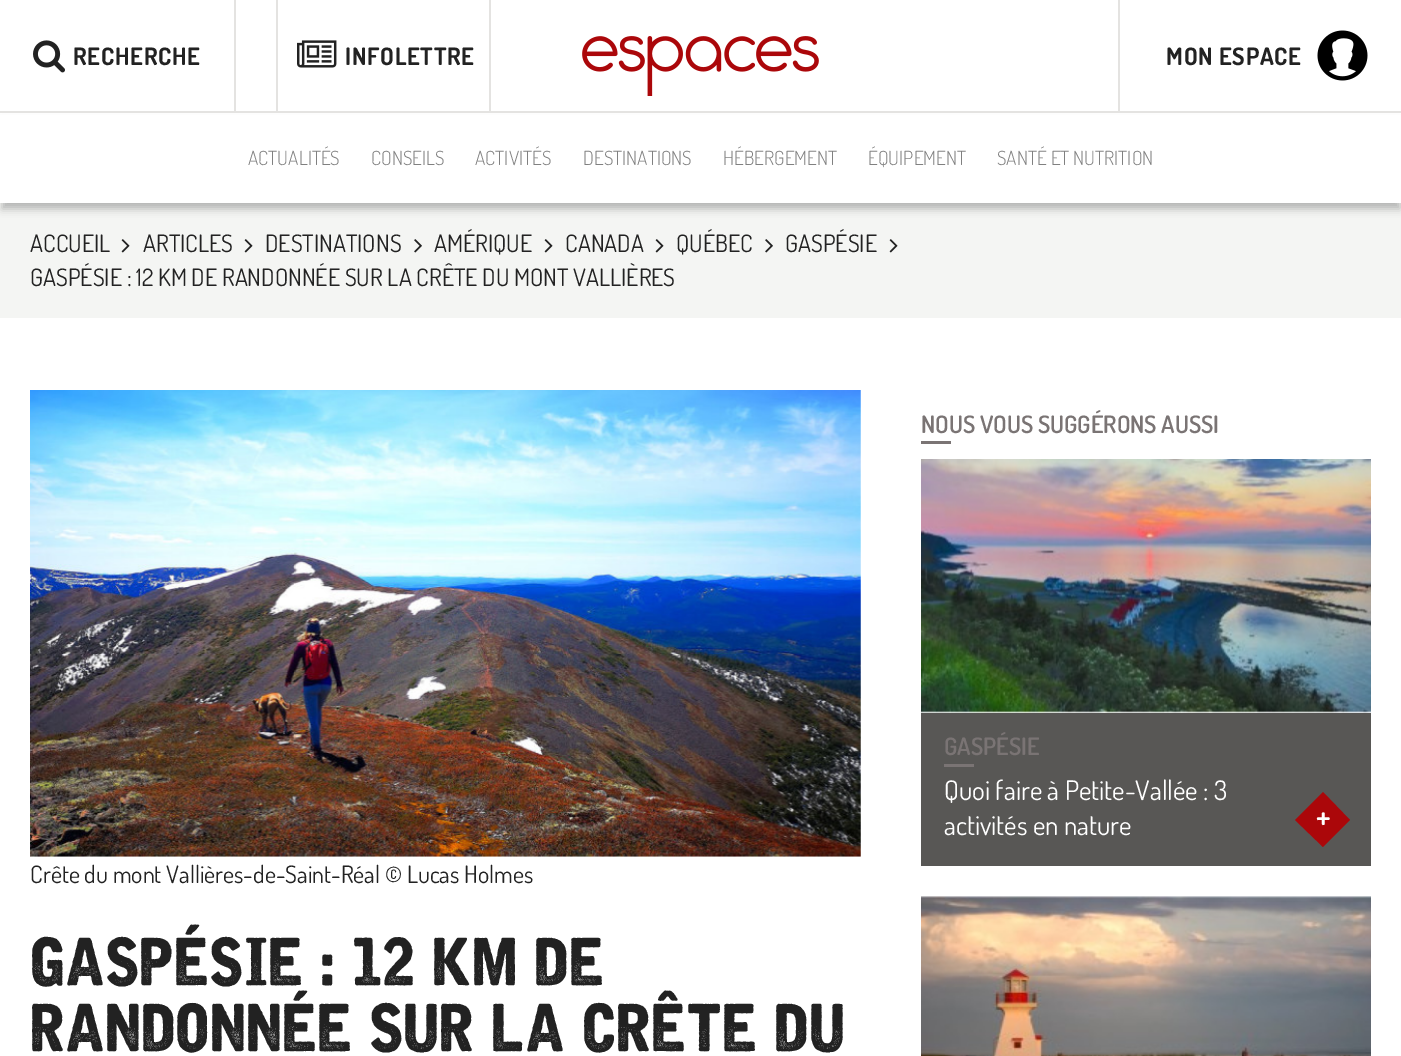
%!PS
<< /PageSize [1401 1056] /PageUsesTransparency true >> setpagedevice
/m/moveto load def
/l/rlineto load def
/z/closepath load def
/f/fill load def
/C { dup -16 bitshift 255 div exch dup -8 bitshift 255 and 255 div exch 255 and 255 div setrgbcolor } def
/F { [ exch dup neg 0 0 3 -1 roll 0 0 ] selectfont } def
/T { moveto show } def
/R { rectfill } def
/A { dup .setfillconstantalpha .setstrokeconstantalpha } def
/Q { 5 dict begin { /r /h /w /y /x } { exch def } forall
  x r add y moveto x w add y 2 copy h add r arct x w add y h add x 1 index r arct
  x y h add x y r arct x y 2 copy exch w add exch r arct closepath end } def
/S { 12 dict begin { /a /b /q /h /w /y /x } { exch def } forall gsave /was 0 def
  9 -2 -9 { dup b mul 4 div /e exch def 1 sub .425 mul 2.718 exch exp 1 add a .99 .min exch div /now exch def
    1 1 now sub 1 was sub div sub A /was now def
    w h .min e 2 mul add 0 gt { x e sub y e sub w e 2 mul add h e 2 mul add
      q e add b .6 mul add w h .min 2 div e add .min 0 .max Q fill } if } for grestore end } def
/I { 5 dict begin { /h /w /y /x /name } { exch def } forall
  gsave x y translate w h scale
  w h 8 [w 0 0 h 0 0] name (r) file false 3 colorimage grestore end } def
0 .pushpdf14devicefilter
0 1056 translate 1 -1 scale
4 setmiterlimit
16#FFFFFF C
0 0 1401 1056 R
16#F4F5F3 C
0 203 1401 115 R
16#000000 C
2 122 1398 87 0 4 .25 S
16#E4E3E1 C
0 111 1401 2 R
234 0 2 111 R
(1.rgb) 33 40 32 33 I
/Dosis-Bold 24 F
16#222222 C
73 65 m .75 0 (RECHERCHE) ashow
16#E4E3E1 C
276 0 2 111 R
489 0 2 111 R
(2.rgb) 297 40 40 28 I
16#222222 C
345 65 m .75 0 (INFOLETTRE) ashow
(3.rgb) 582 36 237 60 I
16#FFFFFF C
0 115 1401 88 R
(4.rgb) 1317 30 51 51 I
16#E4E3E1 C
1118 0 2 111 R
16#222222 C
1166 65 m .75 0 (MON ESPACE) ashow
/Dosis-Light 19.5 F
16#808080 C
(ACTUALITÉS) 248 165 T
(CONSEILS) 371 165 T
(ACTIVITÉS) 475 165 T
(DESTINATIONS) 583 165 T
(HÉBERGEMENT) 723 165 T
(ÉQUIPEMENT) 868 165 T
(SANTÉ ET NUTRITION) 997 165 T
/Dosis-Regular 24 F
16#222222 C
(ACCUEIL) 30 252 T
(5.rgb) 121 239 9 14 I
(ARTICLES) 143 252 T
(5.rgb) 244 239 9 14 I
(DESTINATIONS) 265 252 T
(6.rgb) 414 239 8 14 I
(AMÉRIQUE) 434 252 T
(5.rgb) 544 239 9 14 I
(CANADA) 565 252 T
(5.rgb) 655 239 9 14 I
(QUÉBEC) 676 252 T
(6.rgb) 765 239 8 14 I
(GASPÉSIE) 785 252 T
(5.rgb) 889 239 9 14 I
(GASPÉSIE : 12 KM DE RANDONNÉE SUR LA CRÊTE DU MONT VALLIÈRES) 30 286 T
/Dosis-SemiBold 24 F
16#7A7474 C
(NOUS VOUS SUGGÉRONS AUSSI) 921 433 T
921 441 30 3 R
(7.rgb) 921 459 450 254 I
16#585755 C
921 713 450 153 R
16#7A7474 C
(GASPÉSIE) 944 755 T
944 764 30 3 R
/Dosis-Regular 27 F
16#FFFFFF C
(Quoi faire à Petite-Vallée : 3) 944 800 T
(activités en nature) 944 835 T
16#AB070A C
1323 792 m 27 28 l -27 27 l -28 -27 l z f
/Dosis-SemiBold 33 F
16#FFFFFF C
(+) 1316 828 T
(8.rgb) 921 896 450 160 I
(9.rgb) 30 390 831 467 I
/Dosis-Regular 24 F
16#222222 C
(Crête du mont Vallières-de-Saint-Réal © Lucas Holmes) 30 883 T
/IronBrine-Regular 66 F
(GASPÉSIE : 12 KM DE) 30 985 T
(RANDONNÉE SUR LA CRÊTE DU) 30 1051 T
.poppdf14devicefilter showpage
